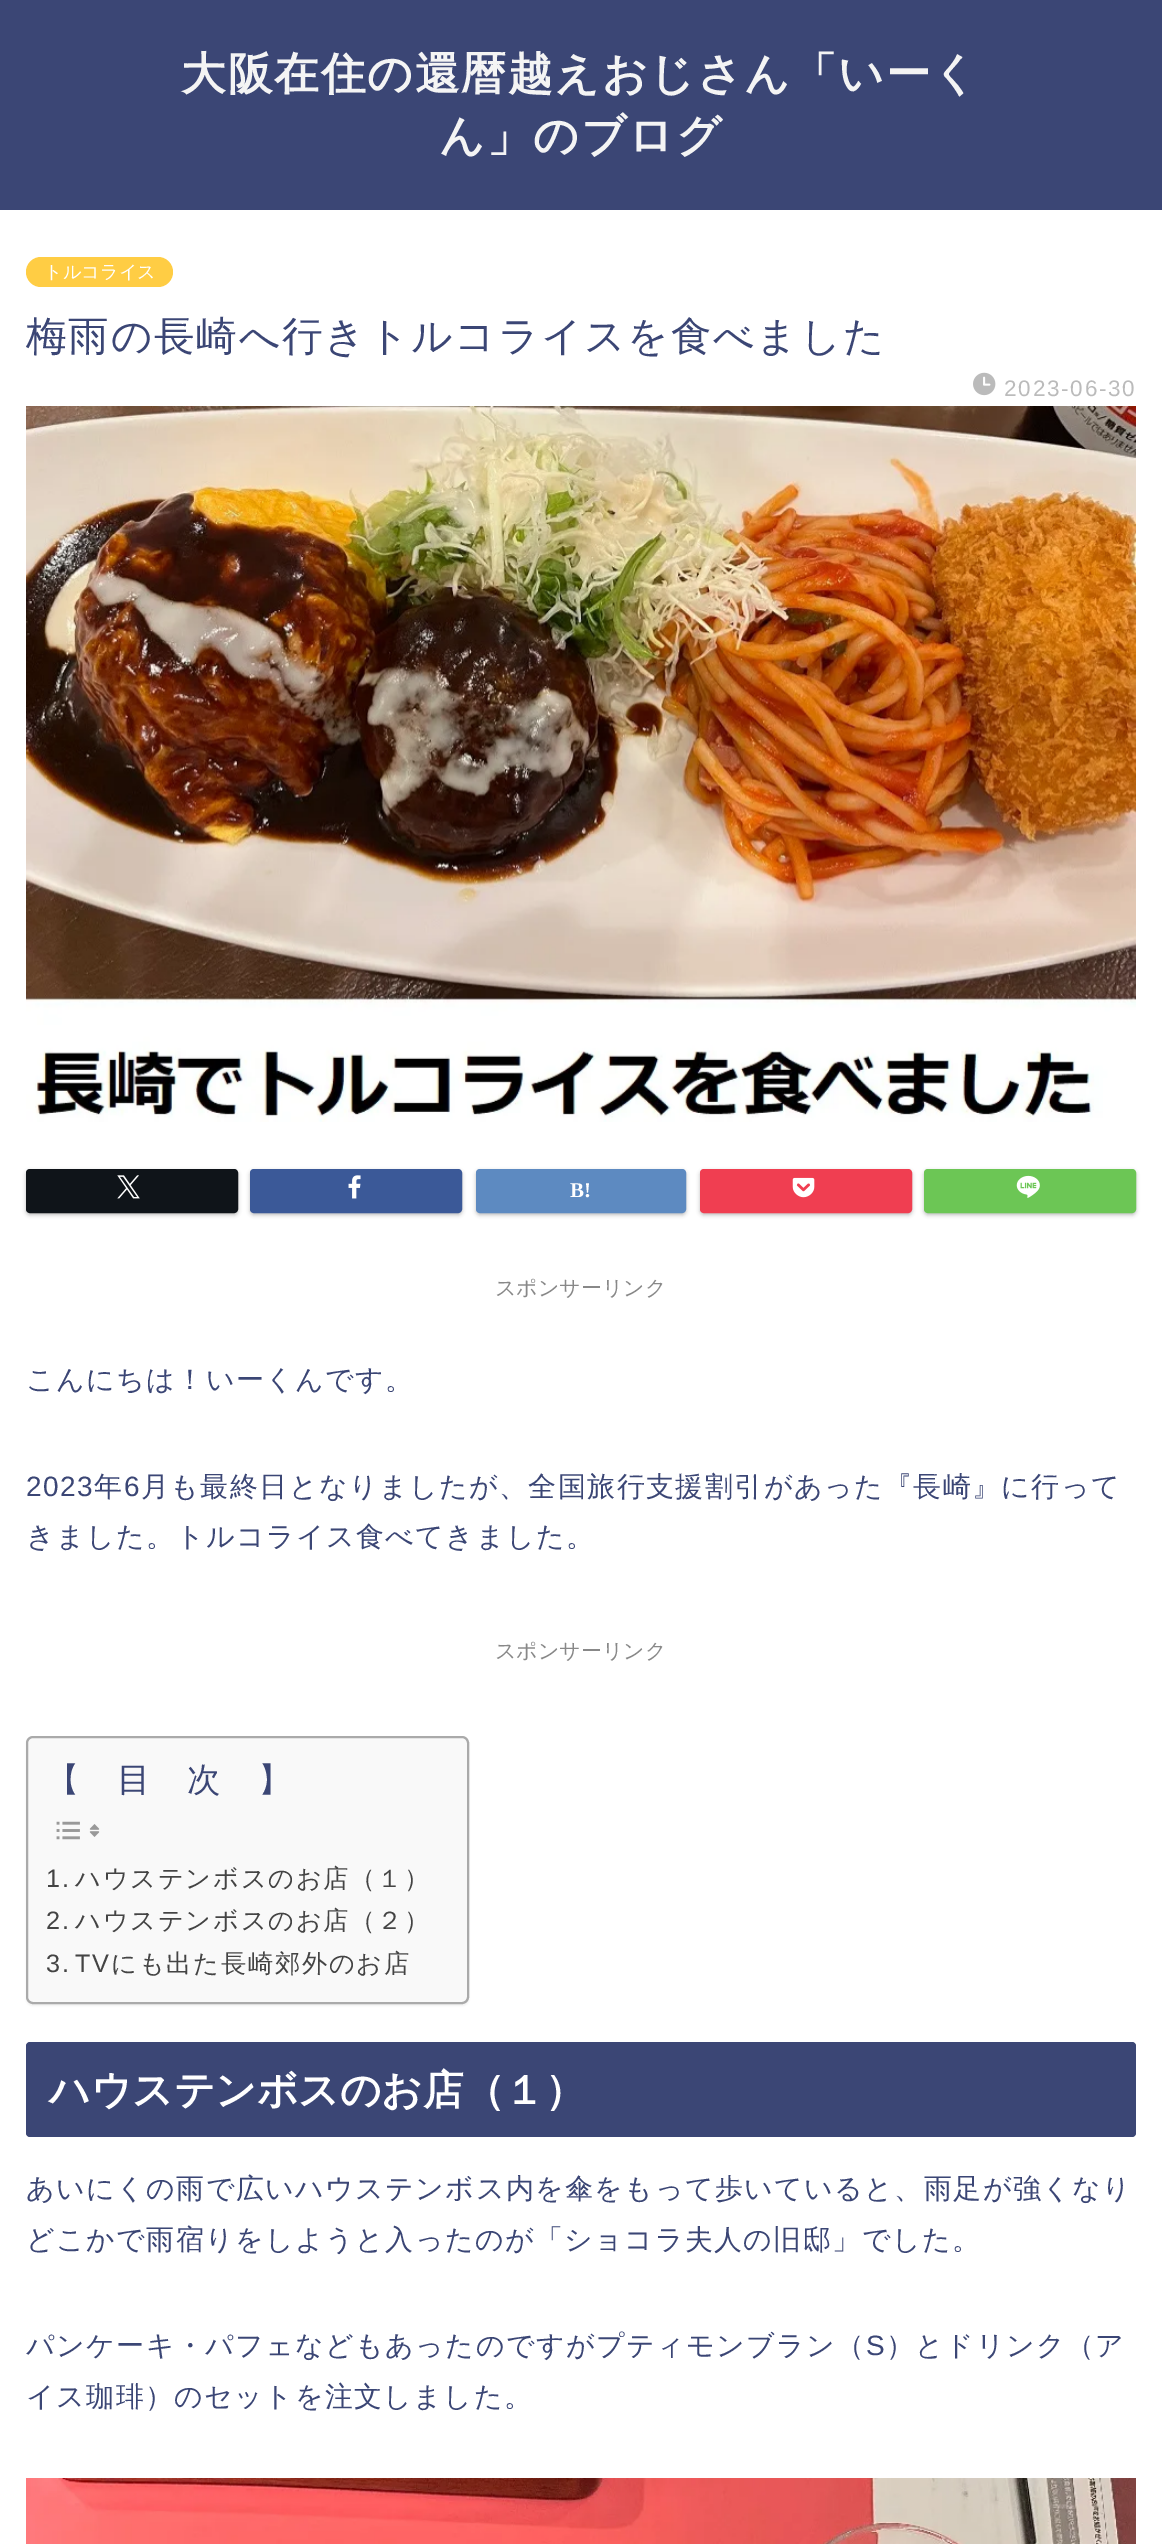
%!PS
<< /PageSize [1162 2544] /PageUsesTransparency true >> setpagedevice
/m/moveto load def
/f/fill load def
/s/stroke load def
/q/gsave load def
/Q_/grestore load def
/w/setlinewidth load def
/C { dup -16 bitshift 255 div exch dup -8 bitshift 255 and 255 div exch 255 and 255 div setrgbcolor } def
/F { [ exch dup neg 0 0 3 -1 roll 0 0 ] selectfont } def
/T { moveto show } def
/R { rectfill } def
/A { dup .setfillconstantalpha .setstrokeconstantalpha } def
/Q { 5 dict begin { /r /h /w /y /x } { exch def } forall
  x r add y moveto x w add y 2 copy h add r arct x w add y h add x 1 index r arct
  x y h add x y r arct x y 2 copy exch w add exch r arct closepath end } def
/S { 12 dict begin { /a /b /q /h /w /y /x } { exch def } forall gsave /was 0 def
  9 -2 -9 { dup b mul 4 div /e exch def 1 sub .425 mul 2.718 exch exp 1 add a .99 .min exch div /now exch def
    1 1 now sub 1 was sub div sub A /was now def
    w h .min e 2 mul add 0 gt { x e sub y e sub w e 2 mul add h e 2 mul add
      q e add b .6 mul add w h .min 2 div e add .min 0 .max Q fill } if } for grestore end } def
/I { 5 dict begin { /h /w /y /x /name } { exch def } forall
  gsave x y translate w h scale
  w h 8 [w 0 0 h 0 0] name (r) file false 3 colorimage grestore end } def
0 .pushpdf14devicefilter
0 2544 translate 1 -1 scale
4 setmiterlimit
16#FFFFFF C
0 0 1162 2544 R
16#3B4675 C
0 0 1162 210 R
/WenQuanYiZenHei-Bold 44.75 F
16#F4F4F4 C
181 89 m 1.75 0 (大阪在住の還暦越えおじさん「いーく) ashow
439 151 m 1.75 0 (ん」のブログ) ashow
16#FFCD44 C
26 257 147 30 15 Q f
/WenQuanYiZenHei-Medium 18.25 F
16#FFFFFF C
(トルコライス) 44 278 T
/WenQuanYiZenHei-Medium 40.6 F
16#3B4675 C
26 350 m 1.75 0 (梅雨の長崎へ行きトルコライスを食べました) ashow
(1.rgb) 973 372 23 24 I
/LiberationSans-Regular 22.5 F
16#BBBBBB C
1004 396 m 1.75 0 (2023-06-30) ashow
(2.rgb) 26 406 1110 716 I
16#000000 C
26 1171 212 44 4 2 .25 S
16#0F1419 C
28 1171 208 40 2 Q q f Q_
4 w
s
(3.rgb) 117 1175 23 24 I
16#000000 C
250 1171 212 44 4 2 .25 S
16#3B5998 C
252 1171 208 40 2 Q q f Q_
s
(4.rgb) 348 1175 13 24 I
16#000000 C
476 1171 210 44 4 2 .25 S
16#5D8AC1 C
478 1171 206 40 2 Q q f Q_
s
/LiberationSerif-Bold 21 F
16#FFFFFF C
(B!) 570 1197 T
16#000000 C
700 1171 212 44 4 2 .25 S
16#F03E51 C
702 1171 208 40 2 Q q f Q_
s
(5.rgb) 792 1177 23 21 I
16#000000 C
924 1171 212 44 4 2 .25 S
16#6CC655 C
926 1171 208 40 2 Q q f Q_
s
(6.rgb) 1016 1175 24 23 I
/WenQuanYiZenHei-Medium 21 F
16#888888 C
(スポンサーリンク) 495 1295 T
/WenQuanYiZenHei-Medium 28 F
16#3B4675 C
26 1389 m 1.4 0 (こんにちは！いーくんです。) ashow
/LiberationSans-Regular 28 F
26 1496 m 1.4 0 (2023) ashow
/WenQuanYiZenHei-Medium 28 F
94 1496 m 1.4 0 (年) ashow
/LiberationSans-Regular 28 F
124 1496 m 1.4 0 (6) ashow
/WenQuanYiZenHei-Medium 28 F
141 1496 m 1.4 0 (月も最終日となりましたが、全国旅行支援割引があった『長崎』に行って) ashow
26 1546 m 1.4 0 (きました。トルコライス食べてきました。) ashow
/WenQuanYiZenHei-Medium 21 F
16#888888 C
(スポンサーリンク) 495 1658 T
16#000000 C
26 1738 443 268 7 1 .05 S
16#F9F9F9 C
27 1737 441 266 6 Q q f Q_
16#AAAAAA C
2 w
s
/WenQuanYiZenHei-Medium 33.5 F
16#3B4675 C
46 1791 m 1.75 0 (【　目　次　】) ashow
(7.rgb) 56 1821 24 19 I
(8.rgb) 89 1824 11 13 I
/LiberationSans-Regular 25.25 F
16#444444 C
46 1887 m 1.75 0 (1.) ashow
/WenQuanYiZenHei-Medium 25.25 F
75 1887 m 1.75 0 (ハウステンボスのお店（１）) ashow
/LiberationSans-Regular 25.25 F
46 1929 m 1.75 0 (2.) ashow
/WenQuanYiZenHei-Medium 25.25 F
75 1929 m 1.75 0 (ハウステンボスのお店（２）) ashow
/LiberationSans-Regular 25.25 F
46 1972 m 1.75 0 (3.) ashow
75 1972 m 1.75 0 (TV) ashow
/WenQuanYiZenHei-Medium 25.25 F
111 1972 m 1.75 0 (にも出た長崎郊外のお店) ashow
16#3B4675 C
26 2042 1110 95 4 Q f
/WenQuanYiZenHei-Bold 40.6 F
16#FFFFFF C
(ハウステンボスのお店（１）) 49 2104 T
/WenQuanYiZenHei-Medium 28 F
16#3B4675 C
26 2198 m 1.4 0 (あいにくの雨で広いハウステンボス内を傘をもって歩いていると、雨足が強くなり) ashow
26 2249 m 1.4 0 (どこかで雨宿りをしようと入ったのが「ショコラ夫人の旧邸」でした。) ashow
26 2355 m 1.4 0 (パンケーキ・パフェなどもあったのですがプティモンブラン（) ashow
/LiberationSans-Regular 28 F
866 2355 m 1.4 0 (S) ashow
/WenQuanYiZenHei-Medium 28 F
886 2355 m 1.4 0 (）とドリンク（ア) ashow
26 2406 m 1.4 0 (イス珈琲）のセットを注文しました。) ashow
(9.rgb) 26 2478 1110 66 I
.poppdf14devicefilter showpage
